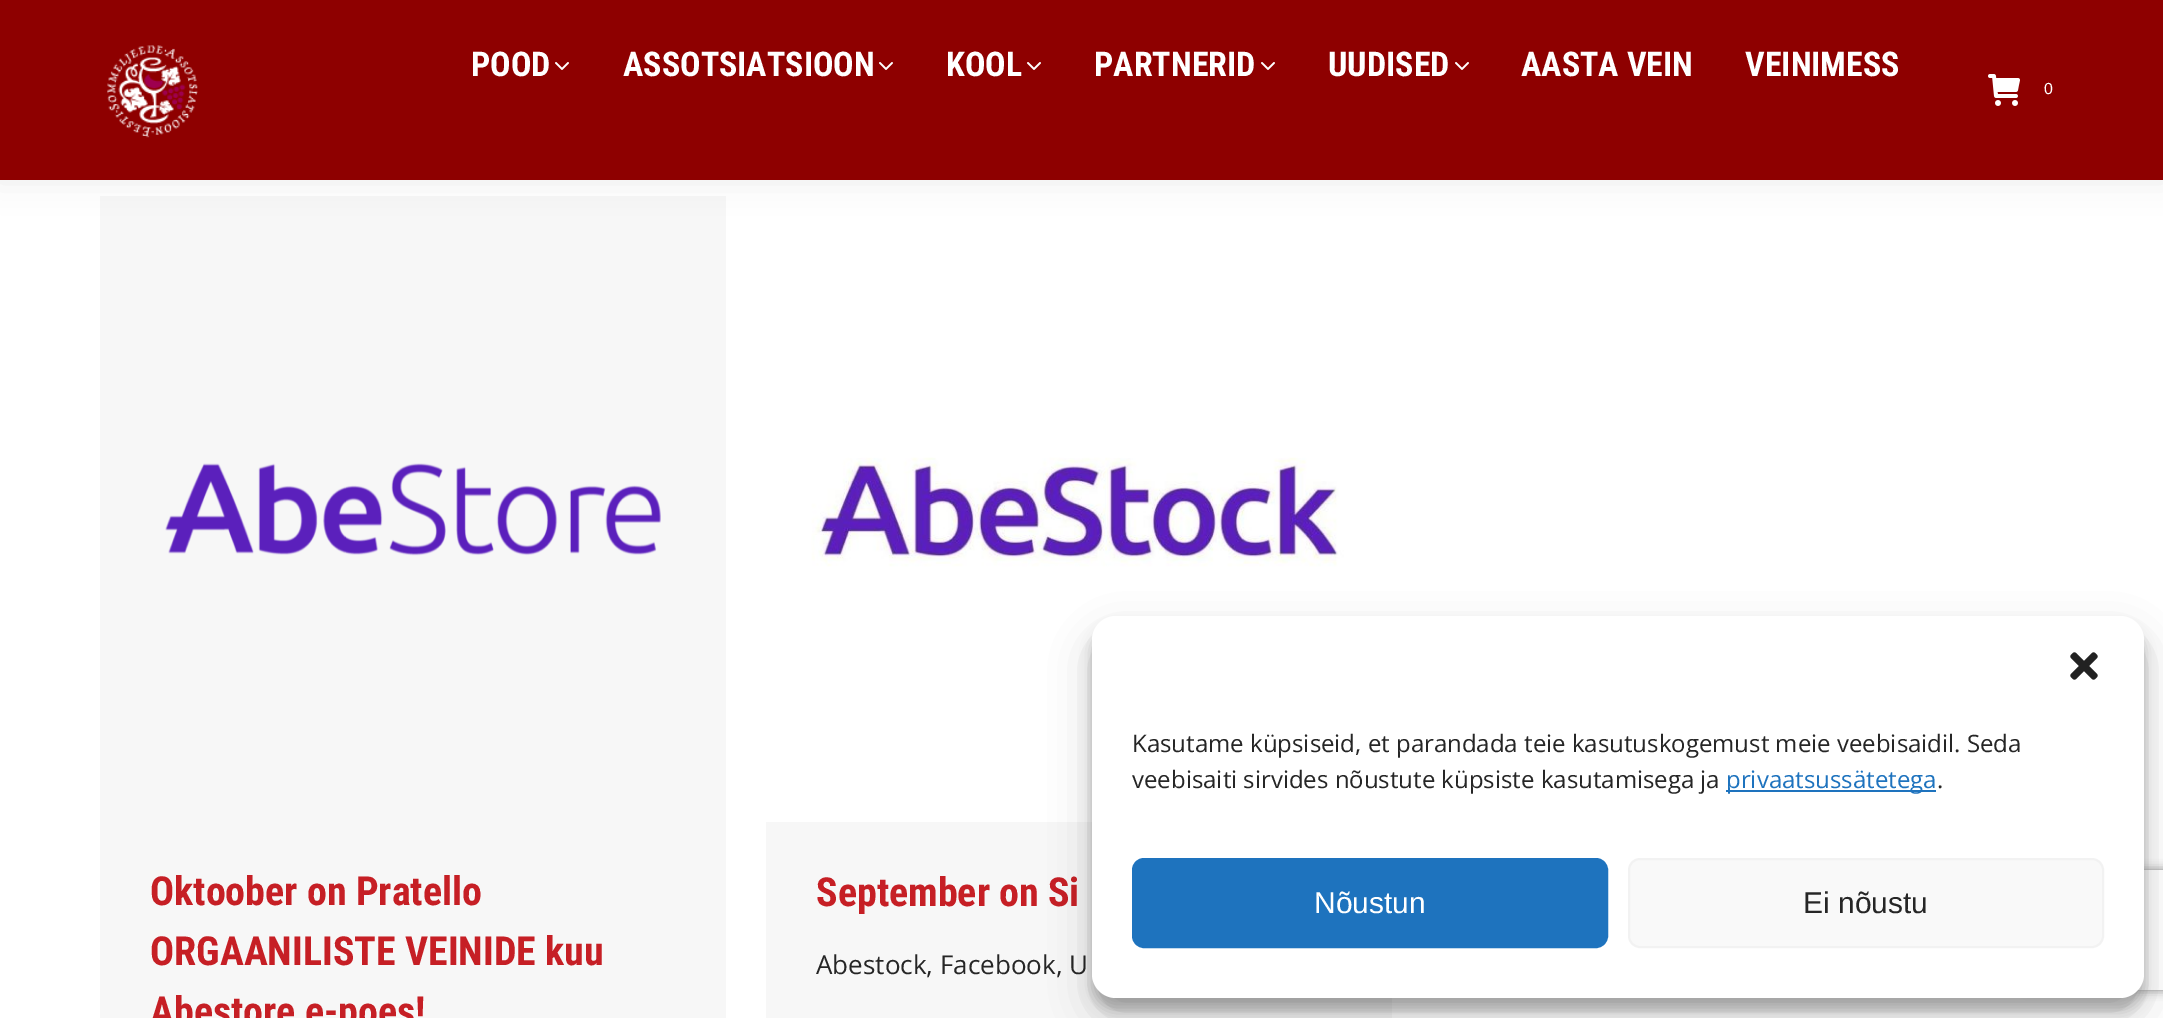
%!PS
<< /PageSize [2163 1018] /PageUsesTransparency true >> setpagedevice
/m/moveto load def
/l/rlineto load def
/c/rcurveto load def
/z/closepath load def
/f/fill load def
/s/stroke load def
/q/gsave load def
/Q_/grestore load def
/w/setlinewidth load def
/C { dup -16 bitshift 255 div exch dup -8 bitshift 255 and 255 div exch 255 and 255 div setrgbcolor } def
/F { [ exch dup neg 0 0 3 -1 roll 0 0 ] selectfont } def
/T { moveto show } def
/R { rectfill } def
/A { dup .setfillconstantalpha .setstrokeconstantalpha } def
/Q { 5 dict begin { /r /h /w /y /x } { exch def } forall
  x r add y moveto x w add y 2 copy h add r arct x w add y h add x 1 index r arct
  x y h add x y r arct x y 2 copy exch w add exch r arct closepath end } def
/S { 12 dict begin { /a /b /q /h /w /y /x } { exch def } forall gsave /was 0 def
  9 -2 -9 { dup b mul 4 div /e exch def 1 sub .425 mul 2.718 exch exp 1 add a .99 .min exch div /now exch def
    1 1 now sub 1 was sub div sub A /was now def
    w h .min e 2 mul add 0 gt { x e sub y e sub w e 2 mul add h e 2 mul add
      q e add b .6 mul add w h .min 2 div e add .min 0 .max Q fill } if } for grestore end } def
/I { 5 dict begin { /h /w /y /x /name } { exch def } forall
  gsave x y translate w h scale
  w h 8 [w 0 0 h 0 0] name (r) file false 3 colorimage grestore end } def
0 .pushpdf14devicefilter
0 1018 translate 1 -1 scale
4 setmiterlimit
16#FFFFFF C
0 0 2163 1018 R
16#F7F7F7 C
100 196 626 822 R
(5.rgb) 766 196 626 626 I
16#000000 C
-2 -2 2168 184 0 15 .07 S
16#8E0000 C
0 0 2163 180 R
(1.rgb) 107 45 91 93 I
/RobotoCondensed-Bold 34 F
16#FFFFFF C
(POOD) 471 76 T
(2.rgb) 555 62 14 8 I
(ASSOTSIATSIOON) 623 76 T
(2.rgb) 879 62 14 8 I
(KOOL) 946 76 T
(2.rgb) 1027 62 14 8 I
(PARTNERID) 1094 76 T
(2.rgb) 1261 62 14 8 I
(UUDISED) 1328 76 T
(2.rgb) 1455 62 14 8 I
(AASTA VEIN) 1521 76 T
(VEINIMESS) 1745 76 T
(3.rgb) 1988 74 32 32 I
/LiberationSans-Regular 16 F
(0) 2044 94 T
(4.rgb) 165 463 496 93 I
/RobotoCondensed-Bold 40 F
16#C61F25 C
(Oktoober on Pratello) 150 905 T
(ORGAANILISTE VEINIDE kuu) 150 965 T
(Abestore e-poes!) 150 1025 T
16#F7F7F7 C
766 822 626 196 R
16#C61F25 C
(September on Si) 816 906 T
/OpenSans-Regular 26 F
16#262626 C
(Abestock, Facebook, U) 816 974 T
16#000000 C
1092 628 1052 382 24 6 .23 S
1092 636 1052 382 24 20 .19 S
q
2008 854 m 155 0 l 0 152 l -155 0 l z 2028 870 m 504 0 l 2 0 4 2 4 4 c 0 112 l 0 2 -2 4 -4 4 c -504 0 l -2 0 -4 -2 -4 -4 c 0 -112 l 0 -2 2 -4 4 -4 c z eoclip newpath
16#808080 C
2024 870 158 120 4 5 1 S
Q_
16#FFFFFF C
1092 616 1052 382 24 Q f
(6.rgb) 2070 652 28 28 I
/OpenSans-Regular 24 F
16#262626 C
(Kasutame küpsiseid, et parandada teie kasutuskogemust meie veebisaidil. Seda) 1132 752 T
(veebisaiti sirvides nõustute küpsiste kasutamisega ja) 1132 788 T
16#1E73BE C
1726 790 210 2 R
(privaatsussätetega) 1726 788 T
16#262626 C
(.) 1937 788 T
16#1E73BE C
1133 859 474 88 11 Q q f Q_
2 w
s
/LiberationSans-Regular 30 F
16#FFFFFF C
(Nõustun) 1314 913 T
16#F9F9F9 C
1629 859 474 88 11 Q q f Q_
16#F2F2F2 C
s
16#262626 C
(Ei nõustu) 1803 913 T
.poppdf14devicefilter showpage
